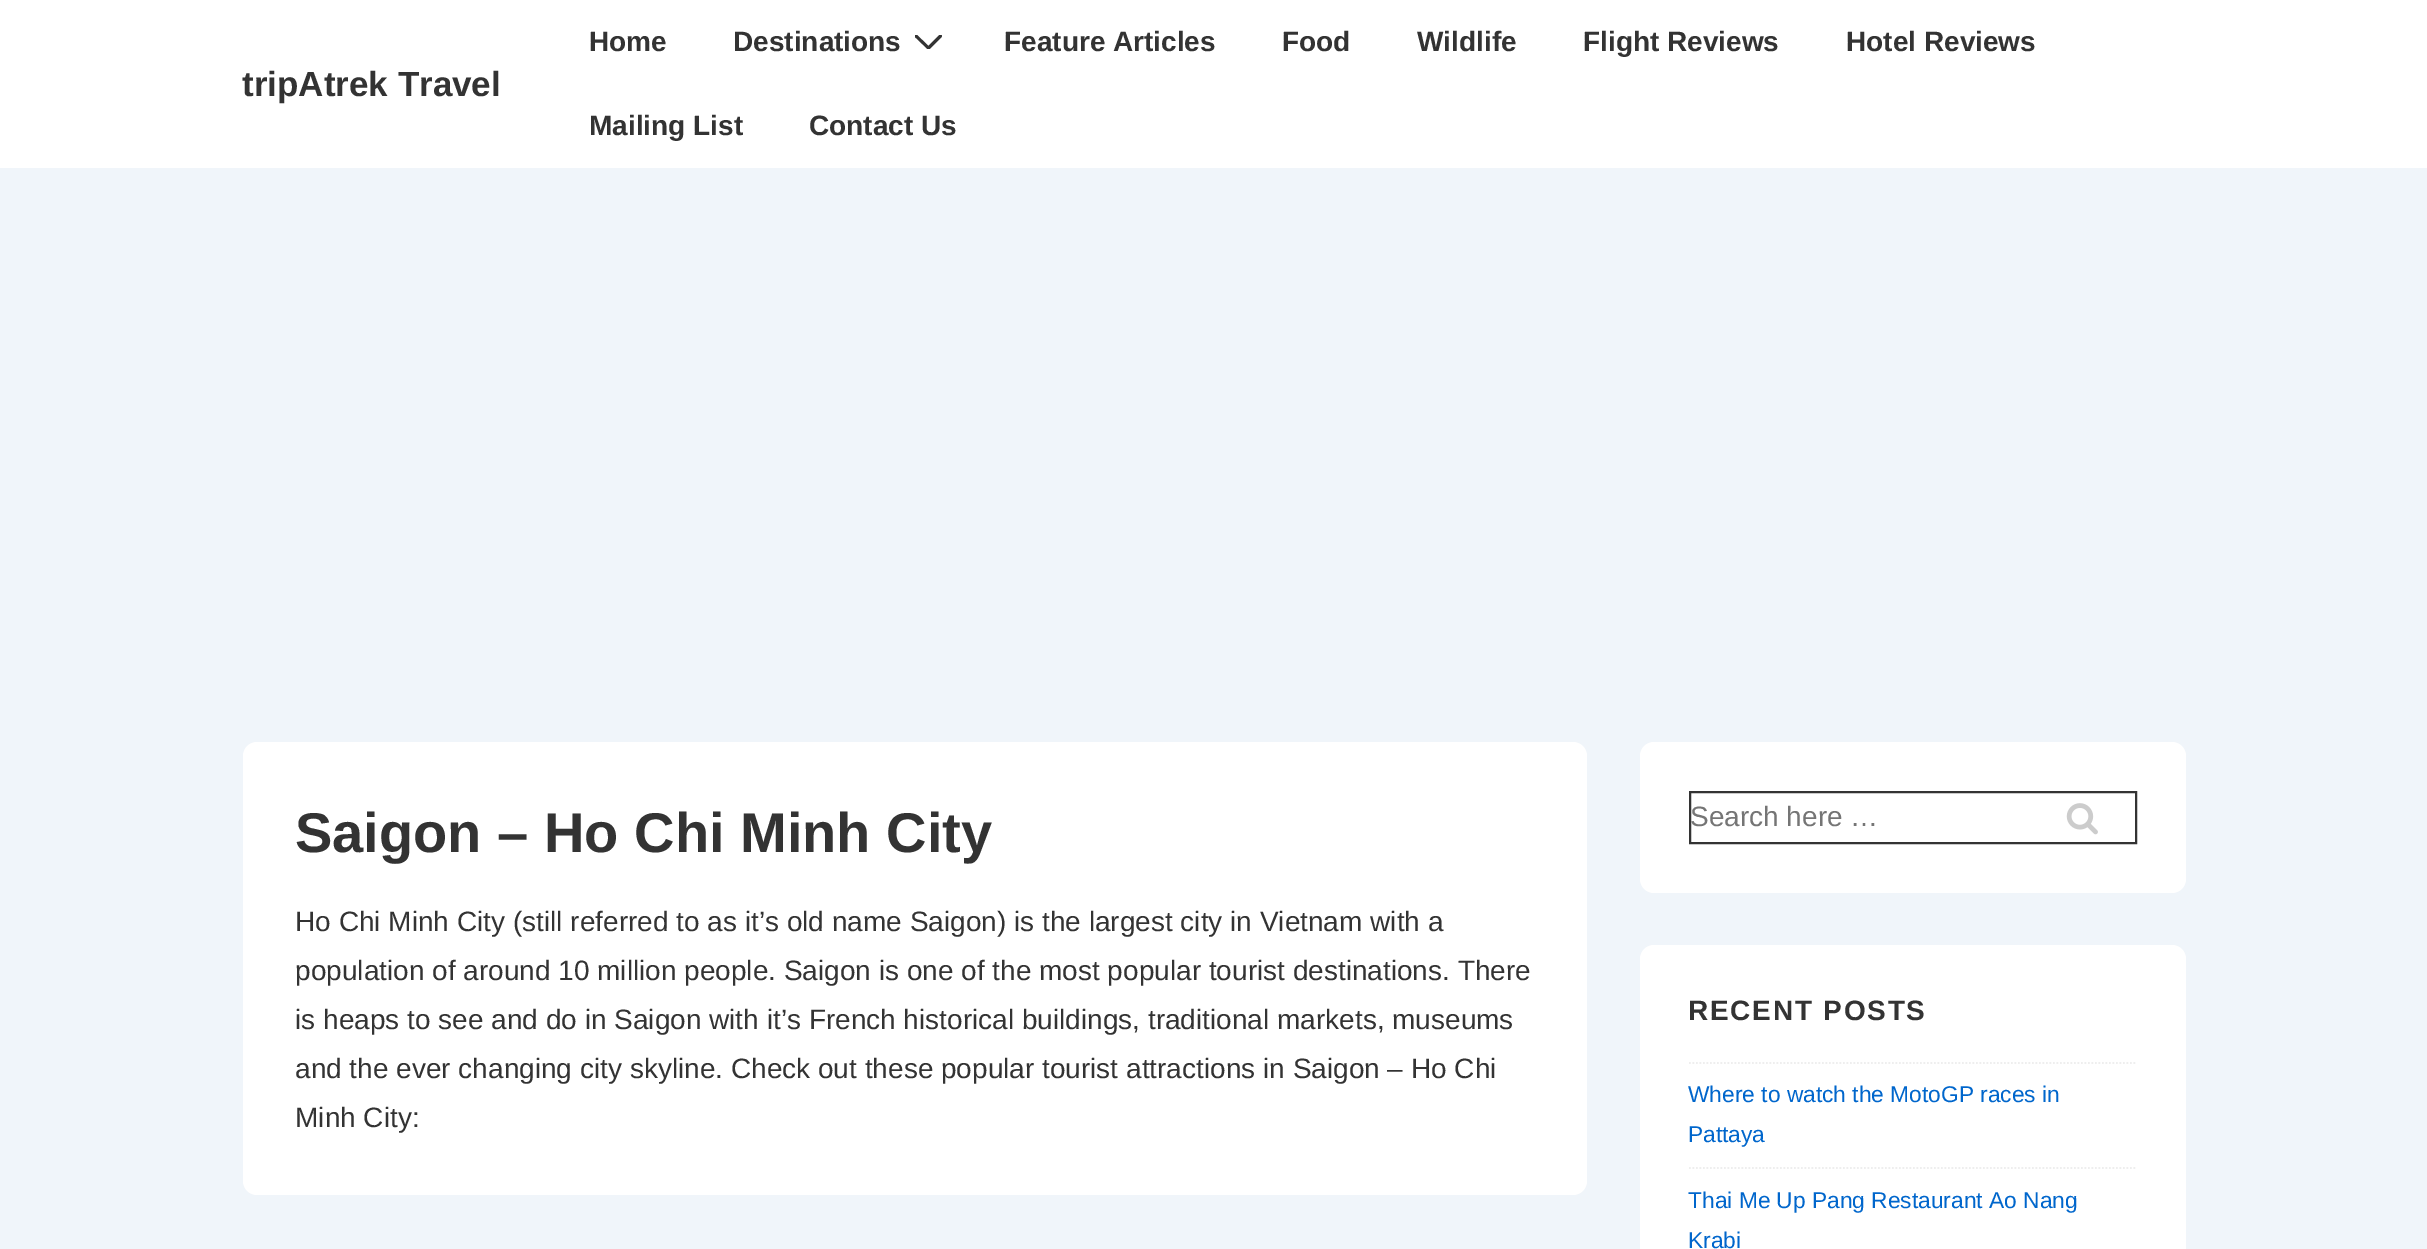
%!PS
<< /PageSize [2427 1249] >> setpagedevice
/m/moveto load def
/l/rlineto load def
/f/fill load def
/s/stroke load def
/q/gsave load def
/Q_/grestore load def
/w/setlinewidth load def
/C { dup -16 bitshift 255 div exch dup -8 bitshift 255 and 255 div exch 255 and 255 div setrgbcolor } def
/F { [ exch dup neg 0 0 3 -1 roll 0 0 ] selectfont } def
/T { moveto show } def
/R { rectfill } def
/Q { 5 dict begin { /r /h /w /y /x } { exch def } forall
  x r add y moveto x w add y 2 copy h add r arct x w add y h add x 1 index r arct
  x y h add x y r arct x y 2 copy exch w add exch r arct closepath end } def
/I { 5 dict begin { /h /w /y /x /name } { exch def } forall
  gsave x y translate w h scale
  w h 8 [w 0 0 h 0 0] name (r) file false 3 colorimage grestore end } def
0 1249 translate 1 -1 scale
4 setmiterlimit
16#F0F5FA C
0 0 2427 1249 R
16#FFFFFF C
0 0 2427 168 R
/LiberationSans-Bold 35 F
16#333333 C
(tripAtrek Travel) 242 96 T
/LiberationSans-Bold 28 F
(Home) 589 51 T
(Destinations) 733 51 T
q
915 35 27 14 rectclip
2.9 w
1 setlinecap
916 36 m 12.5 12 l 12 -12 l s
Q_
(Feature Articles) 1004 51 T
(Food) 1282 51 T
(Wildlife) 1417 51 T
(Flight Reviews) 1583 51 T
(Hotel Reviews) 1846 51 T
(Mailing List) 589 135 T
(Contact Us) 809 135 T
16#FFFFFF C
243 742 1344 453 14 Q f
/LiberationSans-Bold 56 F
16#333333 C
(Saigon – Ho Chi Minh City) 295 852 T
/LiberationSans-Regular 28 F
(Ho Chi Minh City \(still referred to as it’s old name Saigon\) is the largest city in Vietnam with a) 295 931 T
(population of around 10 million people. Saigon is one of the most popular tourist destinations. There) 295 980 T
(is heaps to see and do in Saigon with it’s French historical buildings, traditional markets, museums) 295 1029 T
(and the ever changing city skyline. Check out these popular tourist attractions in Saigon – Ho Chi) 295 1078 T
(Minh City:) 295 1127 T
16#FFFFFF C
1640 742 546 151 14 Q f
16#333333 C
2 w
1690 792 446 51 rectstroke
16#757575 C
(Search here …) 1690 826 T
(1.rgb) 2066 803 32 32 I
16#FFFFFF C
1640 945 546 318 14 Q f
/LiberationSans-Bold 28 F
16#333333 C
1688 1020 m 1.75 0 (RECENT POSTS) ashow
16#EEEEEE C
1.8 w
[1.75 1.75] 0 setdash
1689 1063 m 448 0 l s
/LiberationSans-Regular 22.75 F
16#0066CC C
(Where to watch the MotoGP races in) 1688 1102 T
(Pattaya) 1688 1142 T
16#EEEEEE C
1689 1168 m 448 0 l s
16#0066CC C
(Thai Me Up Pang Restaurant Ao Nang) 1688 1208 T
(Krabi) 1688 1248 T
showpage
